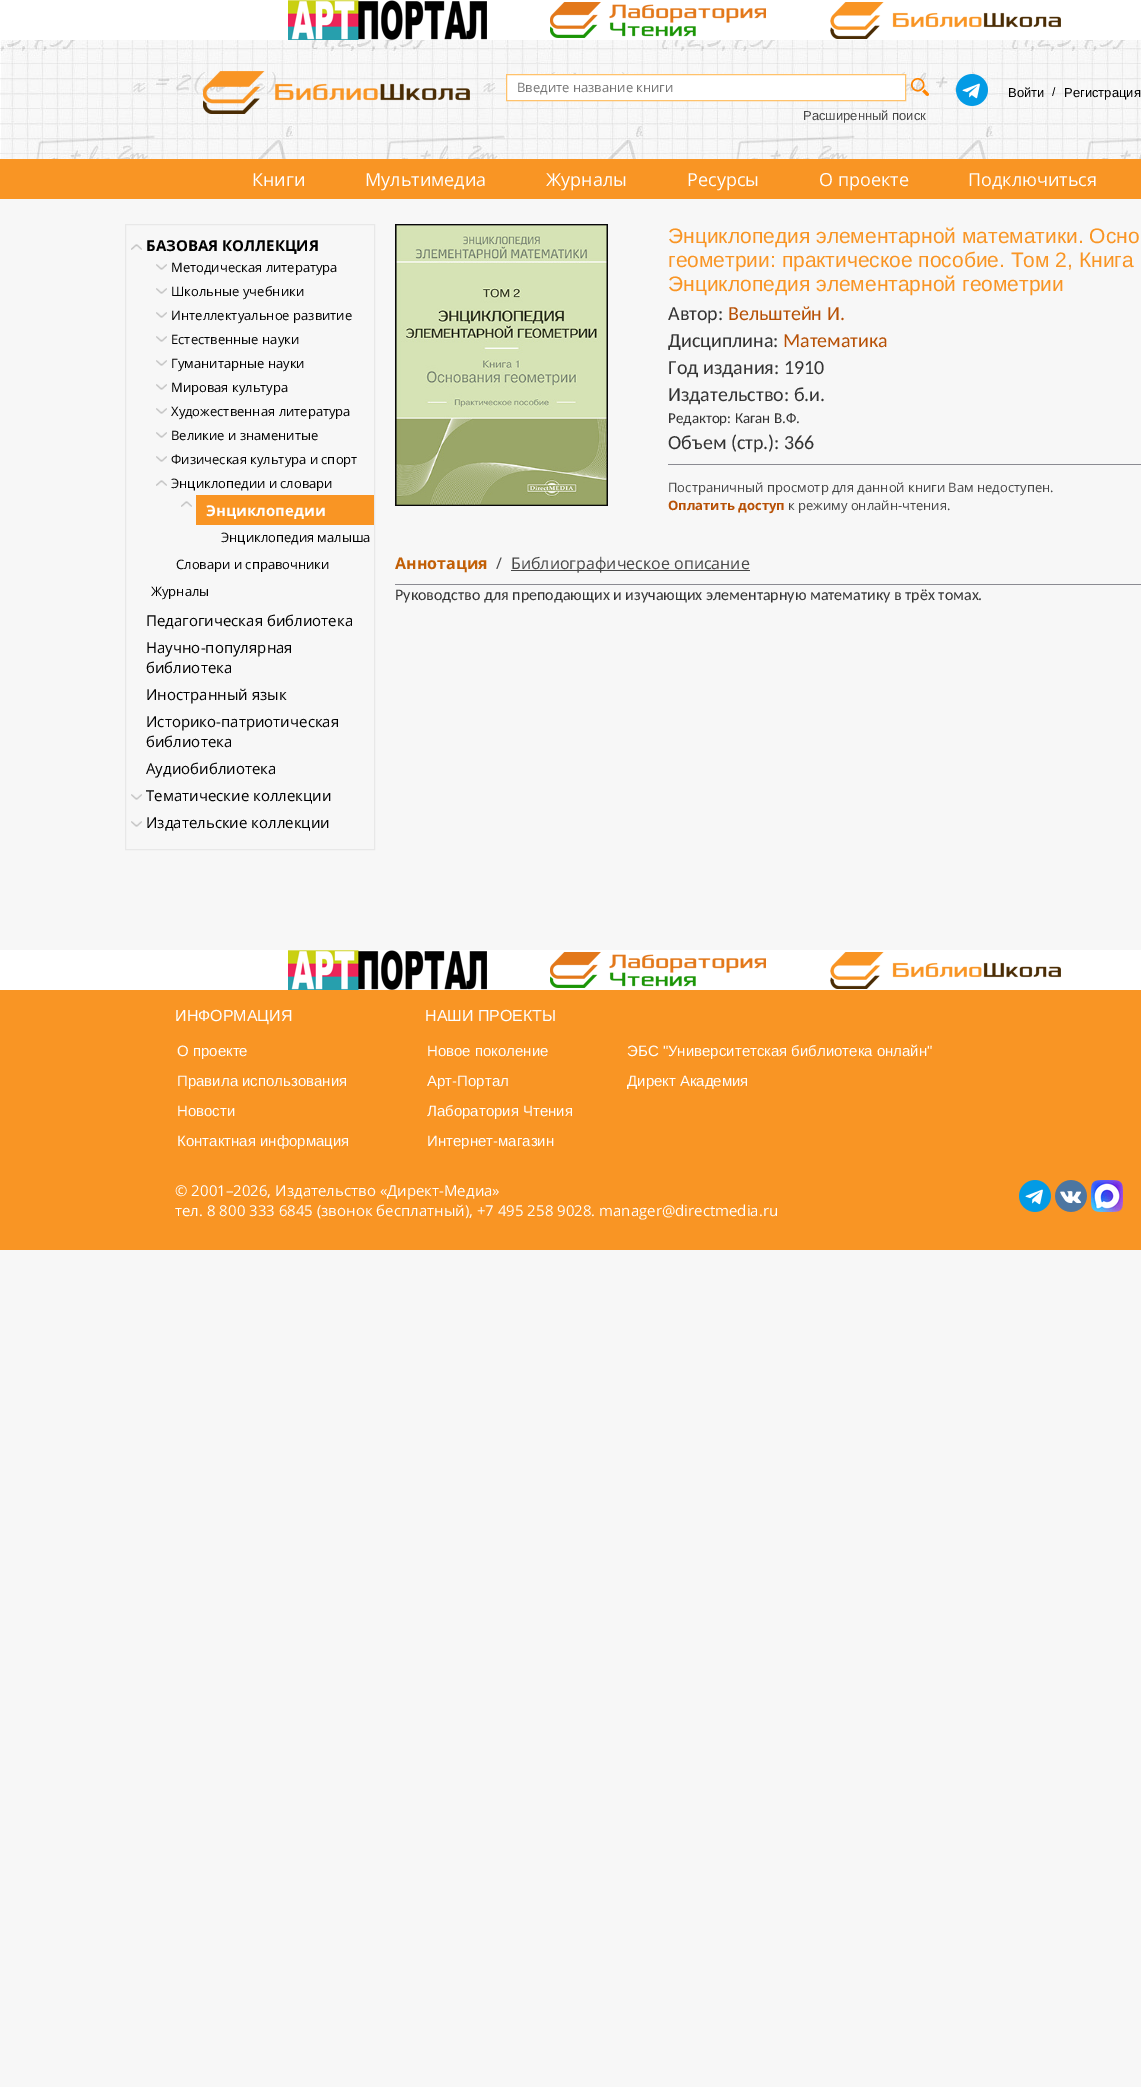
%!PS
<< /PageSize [1141 2087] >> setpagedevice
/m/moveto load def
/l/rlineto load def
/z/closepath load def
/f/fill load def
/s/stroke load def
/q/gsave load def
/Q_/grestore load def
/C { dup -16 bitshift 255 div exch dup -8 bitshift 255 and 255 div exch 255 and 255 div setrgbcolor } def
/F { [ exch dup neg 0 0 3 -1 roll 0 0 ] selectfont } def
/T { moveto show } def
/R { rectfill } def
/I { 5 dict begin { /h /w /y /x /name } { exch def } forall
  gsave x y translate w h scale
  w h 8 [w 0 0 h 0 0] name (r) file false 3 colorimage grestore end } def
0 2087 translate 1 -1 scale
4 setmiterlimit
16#F7F7F7 C
0 0 1141 2087 R
16#FFFFFF C
0 0 1141 40 R
(1.rgb) 288 0 199 40 I
(2.rgb) 550 2 216 36 I
(3.rgb) 830 2 231 37 I
(4.rgb) 0 40 1141 119 I
(5.rgb) 203 71 267 43 I
506.5 74.5 m 399 0 l 0 26 l -399 0 l z q f Q_
16#FFC26B C
s
/OpenSans-Regular 13 F
16#757575 C
(Введите название книги) 517 92 T
(6.rgb) 911 78 18 18 I
/LiberationSans-Regular 13 F
16#464646 C
(Расширенный поиск) 803 120 T
(7.rgb) 956 74 32 32 I
16#000000 C
(Войти) 1008 97 T
/LiberationSans-Regular 12 F
(/) 1052 96 T
/LiberationSans-Regular 13 F
(Регистрация) 1064 97 T
16#F99524 C
0 159 1141 40 R
/OpenSans-Regular 18 F
16#FFFFFF C
(Книги) 252 186 T
(Мультимедиа) 365 186 T
(Журналы) 546 186 T
(Ресурсы) 687 186 T
(О проекте) 819 186 T
(Подключиться) 968 186 T
16#E8E8E8 C
125.5 224.5 249 625 rectstroke
(8.rgb) 131 244 11 6 I
/OpenSans-Bold 15 F
16#000000 C
(БАЗОВАЯ КОЛЛЕКЦИЯ) 146 251 T
(9.rgb) 156 264 11 6 I
/OpenSans-Regular 13 F
(Методическая литература) 171 272 T
(9.rgb) 156 288 11 6 I
(Школьные учебники) 171 296 T
(9.rgb) 156 312 11 6 I
(Интеллектуальное развитие) 171 320 T
(9.rgb) 156 336 11 6 I
(Естественные науки) 171 344 T
(9.rgb) 156 360 11 6 I
(Гуманитарные науки) 171 368 T
(9.rgb) 156 384 11 6 I
(Мировая культура) 171 392 T
(9.rgb) 156 408 11 6 I
(Художественная литература) 171 416 T
(9.rgb) 156 432 11 6 I
(Великие и знаменитые) 171 440 T
(9.rgb) 156 456 11 6 I
(Физическая культура и спорт) 171 464 T
(8.rgb) 156 480 11 6 I
(Энциклопедии и словари) 171 488 T
(8.rgb) 181 501 11 6 I
16#F99524 C
196 495 178 30 R
/OpenSans-Bold 15 F
16#FFFFFF C
(Энциклопедии) 206 516 T
/OpenSans-Regular 13 F
16#000000 C
(Энциклопедия малыша) 221 542 T
(Словари и справочники) 176 569 T
(Журналы) 151 596 T
/OpenSans-Regular 15 F
(Педагогическая библиотека) 146 626 T
(Научно-популярная) 146 653 T
(библиотека) 146 673 T
(Иностранный язык) 146 700 T
(Историко-патриотическая) 146 727 T
(библиотека) 146 747 T
(Аудиобиблиотека) 146 774 T
(9.rgb) 131 794 11 6 I
(Тематические коллекции) 146 801 T
(9.rgb) 131 821 11 6 I
(Издательские коллекции) 146 828 T
(10.rgb) 395 224 213 282 I
/LiberationSans-Regular 21 F
16#F99524 C
(Энциклопедия элементарной математики. Осно) 668 243 T
(геометрии: практическое пособие. Том 2, Книга) 668 267 T
(Энциклопедия элементарной геометрии) 668 291 T
/Carlito-Regular 20 F
16#343434 C
(Автор:) 668 320 T
16#B75005 C
(Вельштейн И.) 728 320 T
16#343434 C
(Дисциплина:) 668 347 T
16#B75005 C
(Математика) 783 347 T
16#343434 C
(Год издания: 1910) 668 374 T
(Издательство: б.и.) 668 401 T
/Carlito-Regular 15 F
(Редактор: Каган В.Ф.) 668 423 T
/Carlito-Regular 20 F
(Объем \(стр.\):) 668 449 T
(366) 784 449 T
16#8B8B92 C
668 464 473 1 R
/OpenSans-Regular 13 F
16#464646 C
(Постраничный просмотр для данной книги Вам недоступен.) 668 492 T
/OpenSans-Bold 13 F
16#B75005 C
(Оплатить доступ) 668 510 T
/OpenSans-Regular 13 F
16#464646 C
(к режиму онлайн-чтения.) 788 510 T
/OpenSans-Bold 16 F
16#C25F05 C
(Аннотация) 395 569 T
/OpenSans-Regular 16 F
16#464646 C
(/) 496 569 T
16#474747 C
511 570 239 1 R
16#464646 C
(Библиографическое описание) 511 569 T
16#8B8B92 C
395 584 746 1 R
/Carlito-Regular 16 F
16#343434 C
(Руководство для преподающих и изучающих элементарную математику в трёх томах.) 395 600 T
16#FFFFFF C
0 950 1141 40 R
(1.rgb) 288 950 199 40 I
(2.rgb) 550 952 216 36 I
(3.rgb) 830 952 231 37 I
16#F99524 C
0 990 1141 260 R
/LiberationSans-Regular 16 F
16#FFFFFF C
(ИНФОРМАЦИЯ) 175 1021 T
/LiberationSans-Regular 15 F
(О проекте) 177 1056 T
(Правила использования) 177 1086 T
(Новости) 177 1116 T
(Контактная информация) 177 1146 T
/LiberationSans-Regular 16 F
(НАШИ ПРОЕКТЫ) 425 1021 T
/LiberationSans-Regular 15 F
(Новое поколение) 427 1056 T
(Арт-Портал) 427 1086 T
(Лаборатория Чтения) 427 1116 T
(Интернет-магазин) 427 1146 T
(ЭБС "Университетская библиотека онлайн") 627 1056 T
(Директ Академия) 627 1086 T
/OpenSans-Regular 15 F
(© 2001–2026, Издательство «Директ-Медиа») 175 1196 T
(тел. 8 800 333 6845 \(звонок бесплатный\), +7 495 258 9028. manager@directmedia.ru) 175 1216 T
(11.rgb) 1019 1180 32 32 I
(12.rgb) 1055 1180 32 32 I
(13.rgb) 1091 1180 32 32 I
showpage
